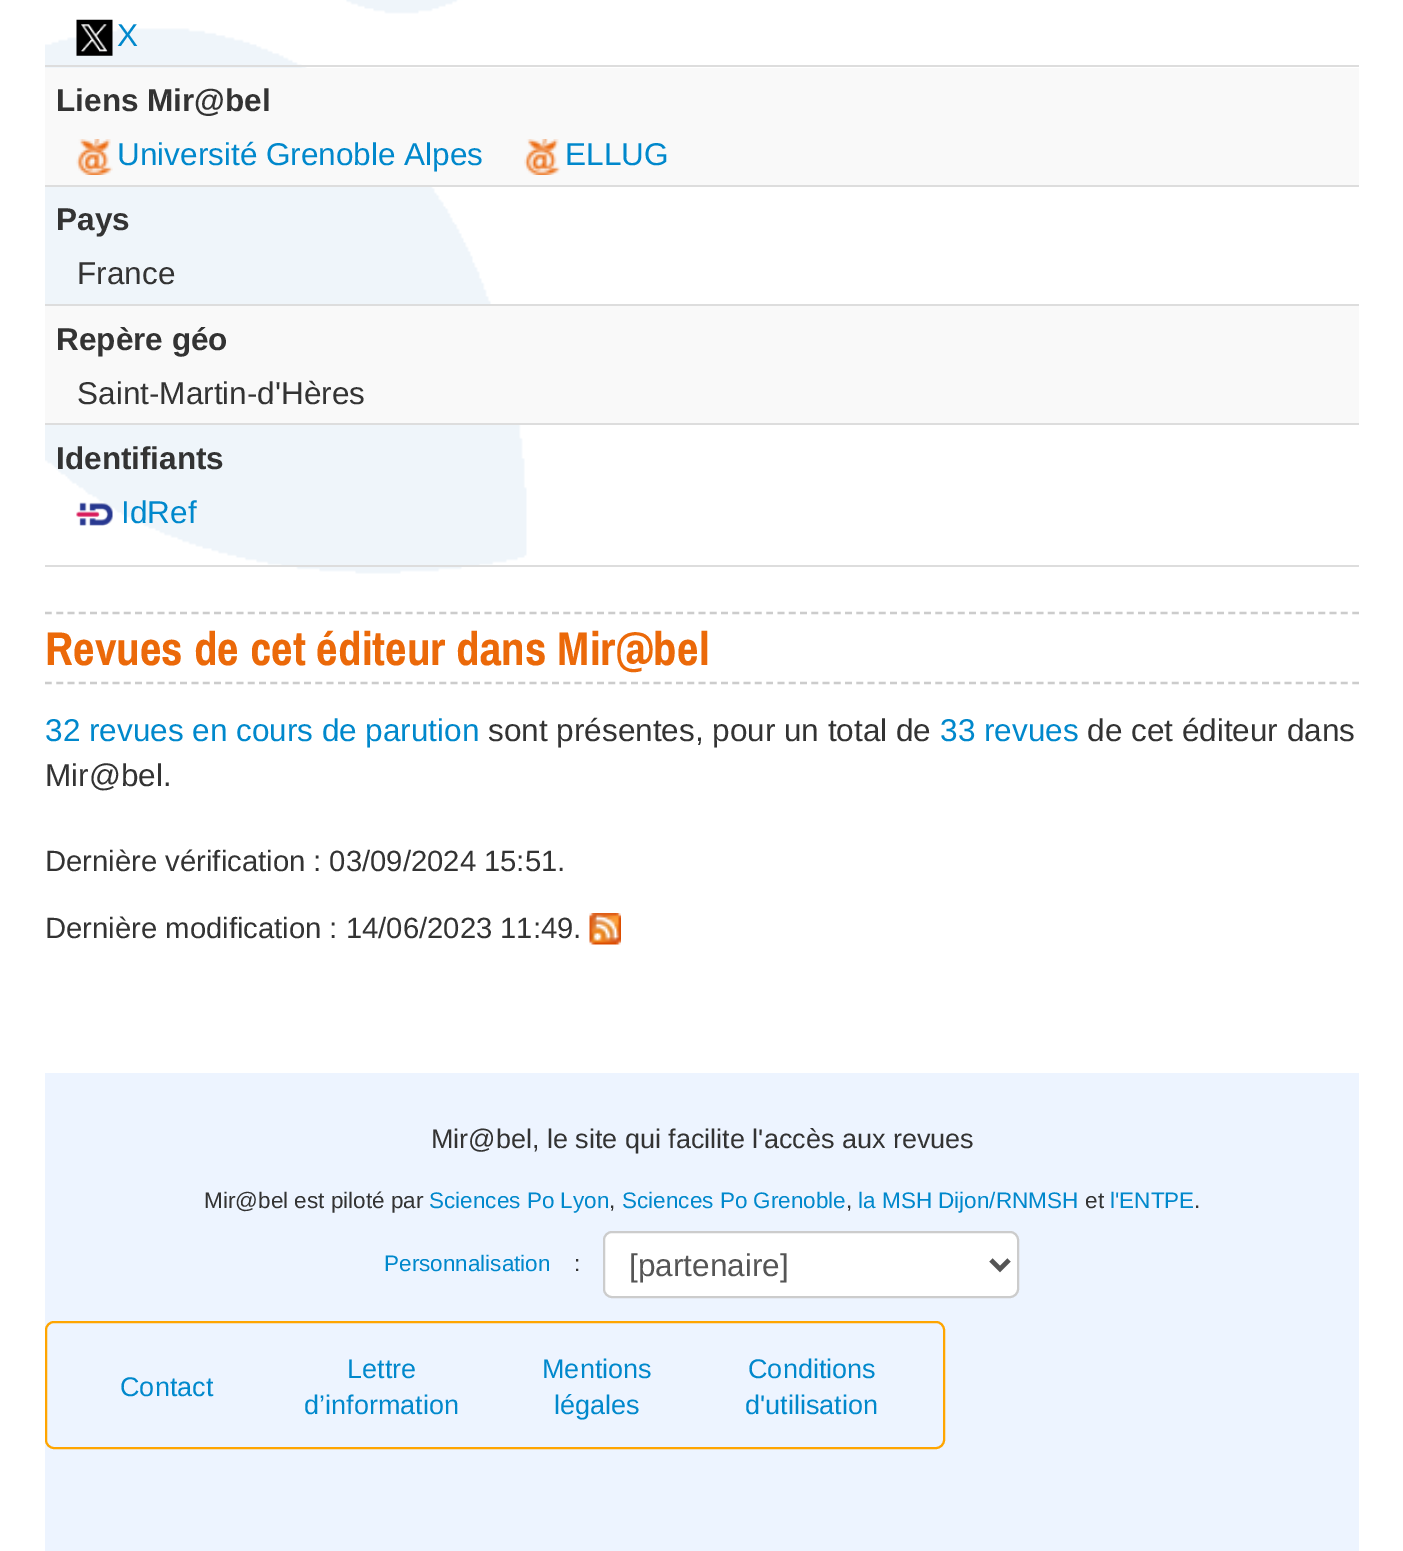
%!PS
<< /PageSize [1403 1551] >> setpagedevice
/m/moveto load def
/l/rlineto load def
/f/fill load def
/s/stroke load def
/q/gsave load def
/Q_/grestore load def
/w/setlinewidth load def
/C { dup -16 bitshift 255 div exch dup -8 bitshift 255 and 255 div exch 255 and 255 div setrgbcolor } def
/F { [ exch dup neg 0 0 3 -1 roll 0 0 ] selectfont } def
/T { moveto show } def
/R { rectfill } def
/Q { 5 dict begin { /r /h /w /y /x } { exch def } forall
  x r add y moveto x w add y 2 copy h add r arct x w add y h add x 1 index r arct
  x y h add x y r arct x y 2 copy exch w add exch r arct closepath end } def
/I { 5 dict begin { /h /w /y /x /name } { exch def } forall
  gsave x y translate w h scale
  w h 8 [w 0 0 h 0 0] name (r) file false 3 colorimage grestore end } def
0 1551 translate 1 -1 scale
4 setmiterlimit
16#FFFFFF C
0 0 1403 1551 R
(1.rgb) 45 0 482 574 I
16#DDDDDD C
45 65 1314 2 R
(2.rgb) 76 19 37 37 I
/LiberationSans-Regular 31.5 F
16#0088CC C
(X) 117 46 T
16#DDDDDD C
45 185 1314 2 R
16#F9F9F9 C
45 68 1314 117 R
/LiberationSans-Bold 31.5 F
16#333333 C
(Liens Mir@bel) 56 111 T
(3.rgb) 76 139 37 36 I
/LiberationSans-Regular 31.5 F
16#0088CC C
(Université Grenoble Alpes) 117 165 T
(4.rgb) 524 139 37 36 I
(ELLUG) 565 165 T
16#DDDDDD C
45 304 1314 2 R
/LiberationSans-Bold 31.5 F
16#333333 C
(Pays) 56 230 T
/LiberationSans-Regular 31.5 F
(France) 77 284 T
16#DDDDDD C
45 423 1314 2 R
16#F9F9F9 C
45 306 1314 117 R
/LiberationSans-Bold 31.5 F
16#333333 C
(Repère géo) 56 350 T
/LiberationSans-Regular 31.5 F
(Saint-Martin-d'Hères) 77 404 T
16#DDDDDD C
45 565 1314 2 R
/LiberationSans-Bold 31.5 F
16#333333 C
(Identifiants) 56 469 T
(5.rgb) 76 502 37 24 I
/LiberationSans-Regular 31.5 F
16#0088CC C
(IdRef) 121 523 T
16#CCCCCC C
2.2 w
[6.75 4.52] 0 setdash
45 613 m 1314 0 l s
45 683 m 1314 0 l s
/ArchivoNarrow-Bold 47.25 F
16#EB6909 C
(Revues de cet éditeur dans Mir@bel) 45 665 T
/LiberationSans-Regular 31.5 F
16#0088CC C
(32 revues en cours de parution) 45 741 T
16#333333 C
(sont présentes, pour un total de) 488 741 T
16#0088CC C
(33 revues) 940 741 T
16#333333 C
(de cet éditeur dans) 1087 741 T
(Mir@bel.) 45 786 T
/LiberationSans-Regular 29.25 F
(Dernière vérification : 03/09/2024 15:51.) 45 871 T
(Dernière modification : 14/06/2023 11:49.) 45 938 T
(6.rgb) 589 913 32 32 I
16#EDF4FF C
45 1073 1314 478 R
/LiberationSans-Regular 27 F
16#333333 C
(Mir@bel, le site qui facilite l'accès aux revues) 431 1148 T
/LiberationSans-Regular 22.5 F
(Mir@bel est piloté par) 204 1208 T
16#0088CC C
(Sciences Po Lyon) 429 1208 T
16#333333 C
(,) 609 1208 T
16#0088CC C
(Sciences Po Grenoble) 622 1208 T
16#333333 C
(,) 846 1208 T
16#0088CC C
(la MSH Dijon/RNMSH) 858 1208 T
16#333333 C
(et) 1085 1208 T
16#0088CC C
(l'ENTPE) 1110 1208 T
16#333333 C
(.) 1194 1208 T
16#0088CC C
(Personnalisation) 384 1271 T
16#333333 C
(:) 574 1271 T
16#FFFFFF C
604 1232 414 65 8 Q q f Q_
16#CCCCCC C
2 w
[] 0 setdash
s
16#555555 C
4.5 w
991 1260 m 9 9 l 9 -9 l s
/LiberationSans-Regular 31.5 F
([partenaire]) 629 1276 T
16#FFA500 C
2 w
46 1322 898 126 8 Q s
/LiberationSans-Regular 27 F
16#0088CC C
(Contact) 120 1396 T
(Lettre) 347 1378 T
(d’information) 304 1414 T
(Mentions) 542 1378 T
(légales) 554 1414 T
(Conditions) 748 1378 T
(d'utilisation) 745 1414 T
showpage
